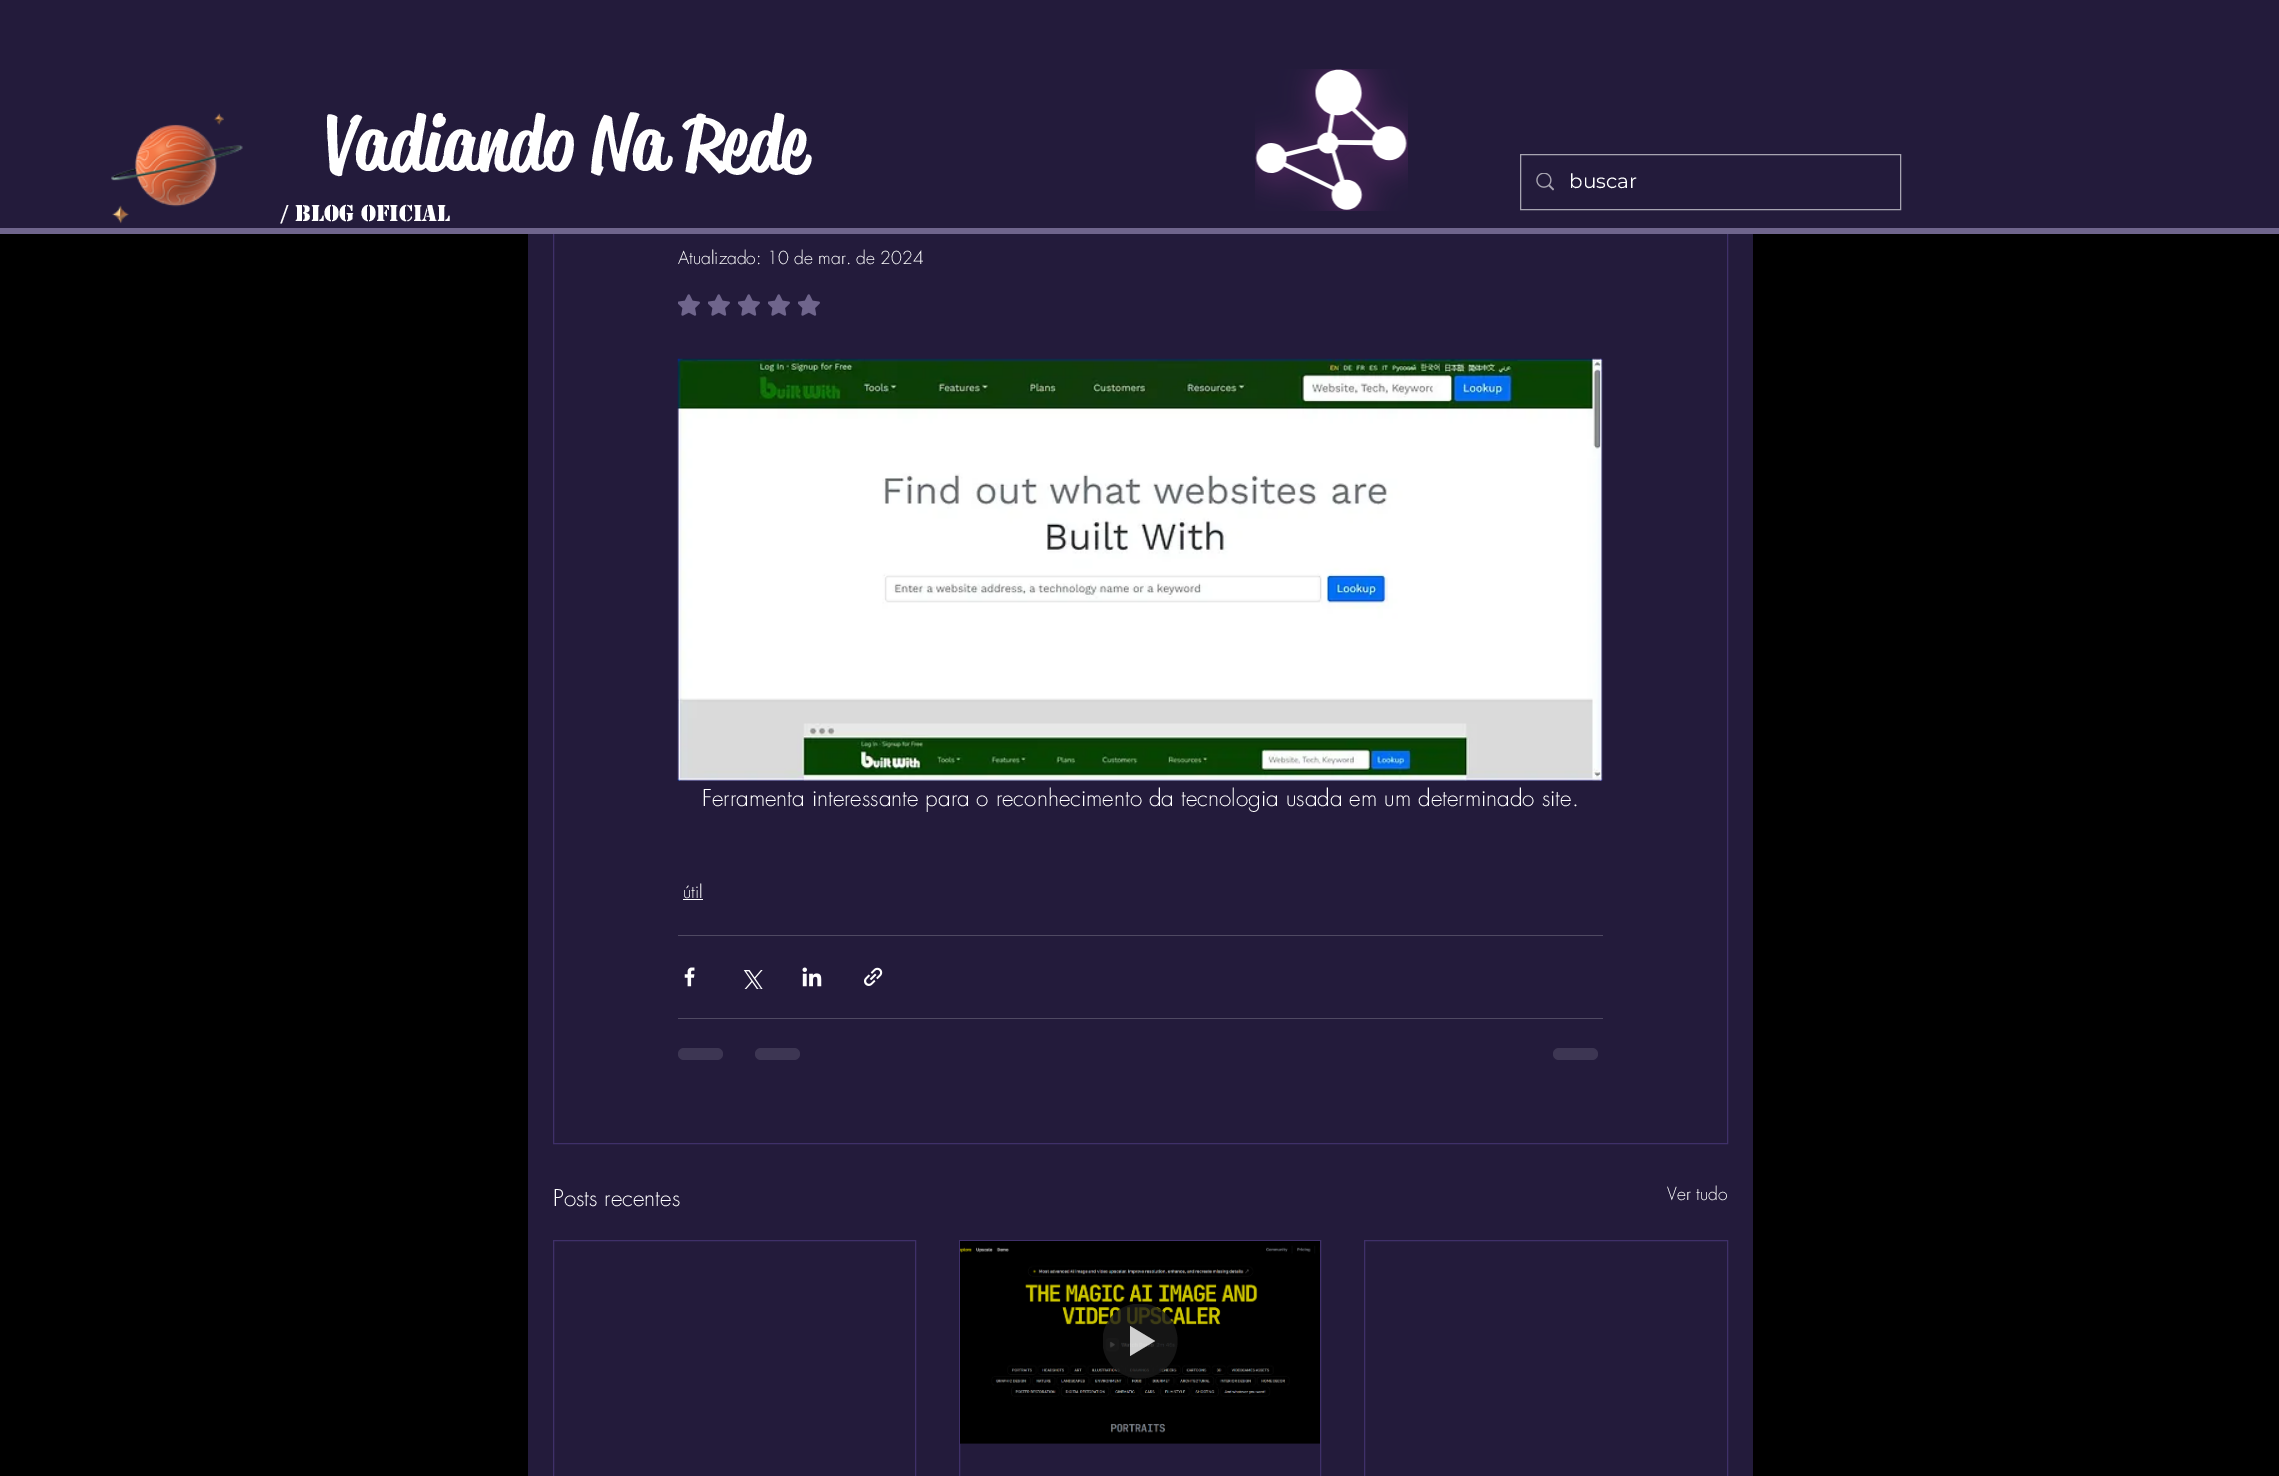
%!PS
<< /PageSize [2279 1476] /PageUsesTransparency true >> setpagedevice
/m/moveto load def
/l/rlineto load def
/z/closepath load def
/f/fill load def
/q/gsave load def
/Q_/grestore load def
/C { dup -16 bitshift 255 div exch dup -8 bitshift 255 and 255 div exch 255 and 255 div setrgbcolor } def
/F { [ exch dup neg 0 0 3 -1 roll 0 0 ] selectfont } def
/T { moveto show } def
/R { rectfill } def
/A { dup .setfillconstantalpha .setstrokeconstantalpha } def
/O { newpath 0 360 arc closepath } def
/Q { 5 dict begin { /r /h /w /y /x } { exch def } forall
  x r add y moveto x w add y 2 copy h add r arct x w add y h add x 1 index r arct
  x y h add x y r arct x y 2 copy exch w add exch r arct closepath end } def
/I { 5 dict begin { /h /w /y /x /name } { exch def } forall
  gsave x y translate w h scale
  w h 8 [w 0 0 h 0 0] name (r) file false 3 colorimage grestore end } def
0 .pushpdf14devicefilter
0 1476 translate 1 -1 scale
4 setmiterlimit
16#000000 C
0 0 2279 1476 R
16#231B3B C
528 234 1225 1242 R
16#3F3069 C
553.5 40.5 1174 1103 rectstroke
16#231B3B C
0 0 2279 228 R
(1.rgb) 111 113 132 111 I
/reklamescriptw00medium-Medium 75 F
16#FFFFFF C
(Vadiando Na Rede) 326 169 T
/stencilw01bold-Bold 21.25 F
(/ BLOG OFICIAL) 281 221 T
16#6F658C C
0 228 2279 6 R
(2.rgb) 1255 69 153 142 I
16#A7A4B1 C
1520.5 154.5 380 55 rectstroke
(3.rgb) 1536 173 18 18 I
/Montserrat-Regular 20 F
16#FFFFFF C
(buscar) 1569 188 T
16#1C162F C
960 1443 360 1 R
/futura-Light 17.5 F
16#FFFFFF C
(Atualizado: 10 de mar. de 2024) 678 264 T
(4.rgb) 678 294 22 22 I
(4.rgb) 708 294 22 22 I
(4.rgb) 738 294 22 22 I
(4.rgb) 768 294 22 22 I
(4.rgb) 798 294 22 22 I
(5.rgb) 677 358 926 423 I
/futura-Light 22.5 F
(Ferramenta interessante para o reconhecimento da tecnologia usada em um determinado site.) 702 806 T
/futura-Light 17.5 F
(útil) 683 898 T
683 899 20 1 R
16#4F4962 C
678 935 925 1 R
(6.rgb) 684 967 11 20 I
(7.rgb) 743 970 20 19 I
(8.rgb) 802 967 20 20 I
(9.rgb) 864 967 19 19 I
678 1018 925 1 R
16#3D3653 C
678 1048 45 12 6 Q f
755 1048 45 12 6 Q f
1553 1048 45 12 6 Q f
/futura-Light 22.5 F
16#FFFFFF C
(Posts recentes) 553 1206 T
/futura-Light 17.5 F
(Ver tudo) 1667 1200 T
16#3F3069 C
553.5 1240.5 362 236 rectstroke
959.5 1240.5 361 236 rectstroke
(10.rgb) 960 1241 360 203 I
q
1103 1304 75 75 rectclip
0.8 A
16#1A1A1A C
1140 1341 37.5 O f
Q_
0.8 A
16#FFFFFF C
1130 1326 m 0 30 l 25 -15 l z f
1 A
16#3F3069 C
1364.5 1240.5 363 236 rectstroke
.poppdf14devicefilter showpage
